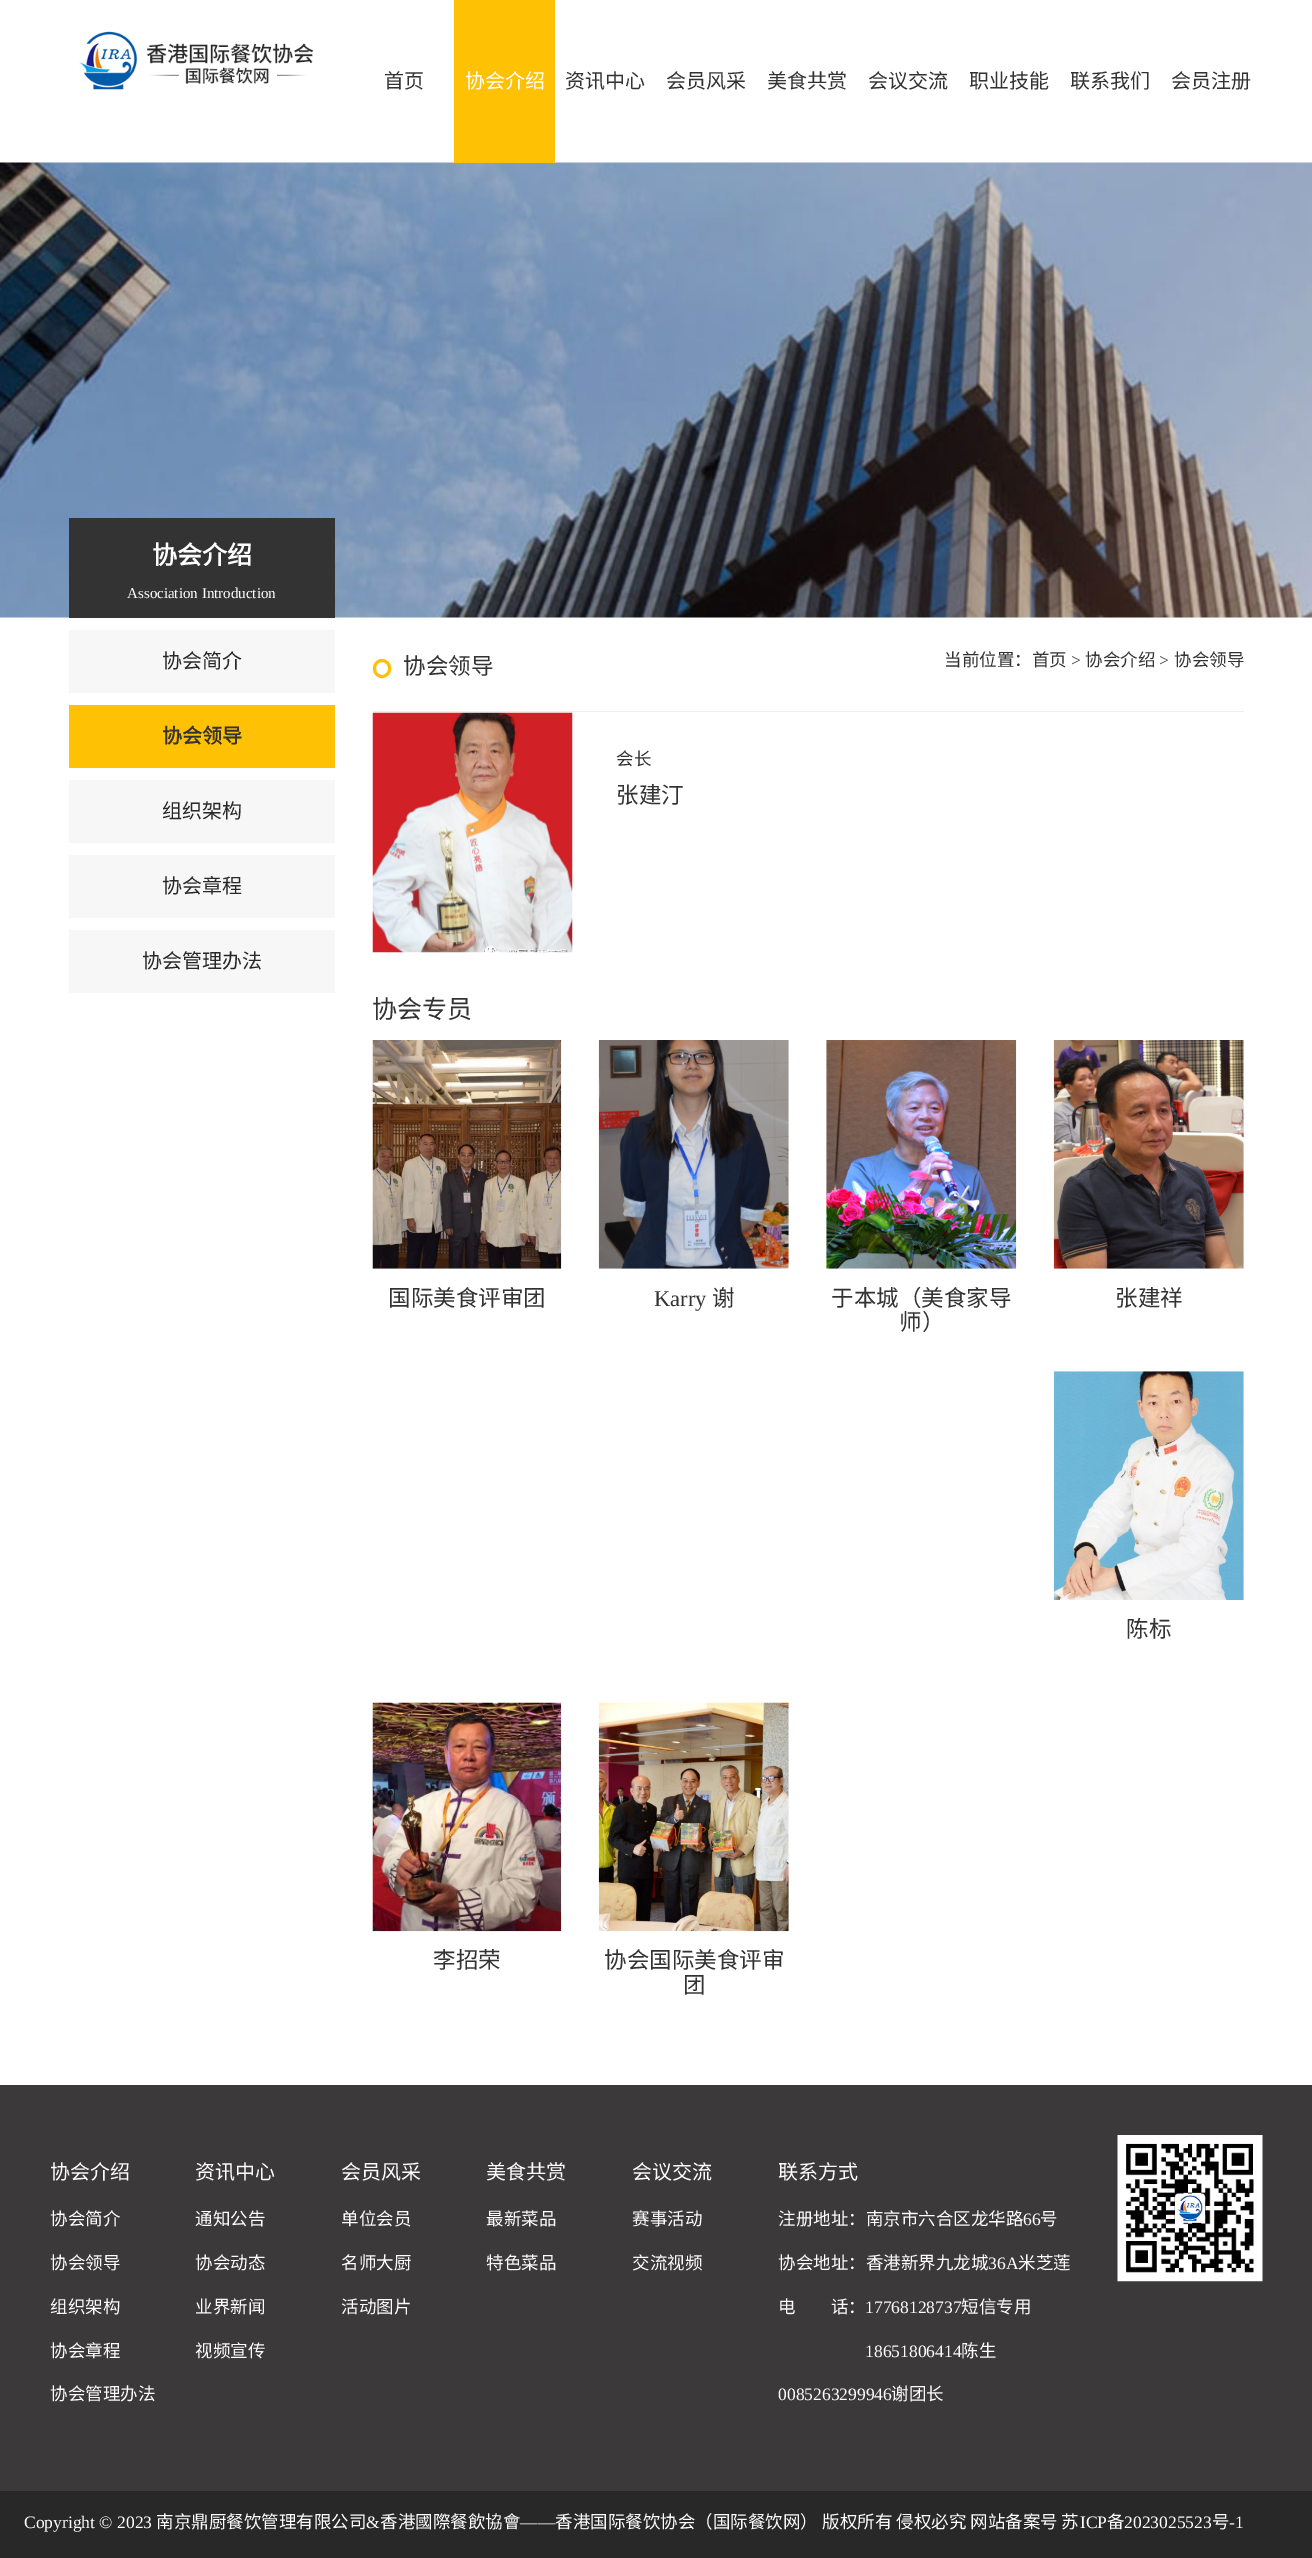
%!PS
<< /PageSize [1312 2558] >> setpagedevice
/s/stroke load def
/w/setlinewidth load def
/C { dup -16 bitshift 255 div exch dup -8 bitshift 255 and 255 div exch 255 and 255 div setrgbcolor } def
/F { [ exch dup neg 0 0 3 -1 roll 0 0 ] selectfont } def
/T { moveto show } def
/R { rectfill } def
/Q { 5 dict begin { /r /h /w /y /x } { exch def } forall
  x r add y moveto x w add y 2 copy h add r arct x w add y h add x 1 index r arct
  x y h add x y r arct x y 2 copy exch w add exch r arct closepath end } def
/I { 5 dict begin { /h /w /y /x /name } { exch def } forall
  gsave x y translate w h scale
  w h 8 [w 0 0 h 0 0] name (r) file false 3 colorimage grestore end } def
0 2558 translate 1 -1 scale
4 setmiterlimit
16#FFFFFF C
0 0 1312 2558 R
(1.rgb) 79 31 235 59 I
/NotoSansCJKSC-Regular 20 F
16#333333 C
(首页) 384 88 T
(2.rgb) 0 162 1312 456 I
16#FFC104 C
454 0 101 163 R
16#FFFFFF C
(协会介绍) 465 88 T
16#333333 C
(资讯中心) 565 88 T
(会员风采) 666 88 T
(美食共赏) 767 88 T
(会议交流) 868 88 T
(职业技能) 969 88 T
(联系我们) 1070 88 T
(会员注册) 1171 88 T
69 518 266 100 R
/NotoSansCJKSC-Bold 25 F
16#FFFFFF C
(协会介绍) 152 564 T
/LiberationSerif-Regular 15 F
(Association Introduction) 127 598 T
16#F7F7F7 C
69 630 266 63 R
/NotoSansCJKSC-Regular 20 F
16#282828 C
(协会简介) 162 668 T
16#FFC104 C
69 705 266 63 R
/NotoSansCJKSC-Bold 20 F
16#333333 C
(协会领导) 162 743 T
16#F7F7F7 C
69 780 266 63 R
/NotoSansCJKSC-Regular 20 F
16#282828 C
(组织架构) 162 818 T
16#F7F7F7 C
69 855 266 63 R
16#282828 C
(协会章程) 162 893 T
16#F7F7F7 C
69 930 266 63 R
16#282828 C
(协会管理办法) 142 968 T
16#EEEEEE C
373 711 871 1 R
16#FFC104 C
3 w
374.5 660.5 15 16 7.5 Q s
/NotoSansCJKSC-Regular 22.5 F
16#333333 C
(协会领导) 403 674 T
/NotoSansCJKSC-Regular 17.5 F
(当前位置：首页) 944 666 T
/LiberationSerif-Regular 17.5 F
(>) 1071 666 T
/NotoSansCJKSC-Regular 17.5 F
(协会介绍) 1085 666 T
/LiberationSerif-Regular 17.5 F
(>) 1159 666 T
/NotoSansCJKSC-Regular 17.5 F
(协会领导) 1174 666 T
(3.rgb) 372 712 201 241 I
(会长) 616 765 T
/NotoSansCJKSC-Regular 22.5 F
(张建汀) 616 803 T
/NotoSansCJKSC-Regular 25 F
(协会专员) 372 1018 T
(4.rgb) 372 1040 190 229 I
/NotoSansCJKSC-Regular 22.5 F
(国际美食评审团) 388 1306 T
(5.rgb) 598 1040 191 229 I
/LiberationSerif-Regular 22.5 F
(Karry) 654 1306 T
/NotoSansCJKSC-Regular 22.5 F
(谢) 712 1306 T
(6.rgb) 826 1040 191 229 I
(于本城（美食家导) 831 1306 T
(师）) 899 1330 T
(7.rgb) 1053 1040 191 229 I
(张建祥) 1115 1306 T
(8.rgb) 1053 1371 191 229 I
(陈标) 1126 1637 T
(9.rgb) 372 1702 190 230 I
(李招荣) 433 1968 T
(10.rgb) 598 1702 191 230 I
(协会国际美食评审) 604 1968 T
(团) 683 1993 T
16#3B393A C
0 2085 1312 406 R
/NotoSansCJKSC-Regular 20 F
16#FFFFFF C
(协会介绍) 50 2179 T
/NotoSansCJKSC-Regular 17.5 F
(协会简介) 50 2225 T
(协会领导) 50 2269 T
(组织架构) 50 2313 T
(协会章程) 50 2357 T
(协会管理办法) 50 2400 T
/NotoSansCJKSC-Regular 20 F
(资讯中心) 195 2179 T
/NotoSansCJKSC-Regular 17.5 F
(通知公告) 195 2225 T
(协会动态) 195 2269 T
(业界新闻) 195 2313 T
(视频宣传) 195 2357 T
/NotoSansCJKSC-Regular 20 F
(会员风采) 341 2179 T
/NotoSansCJKSC-Regular 17.5 F
(单位会员) 341 2225 T
(名师大厨) 341 2269 T
(活动图片) 341 2313 T
/NotoSansCJKSC-Regular 20 F
(美食共赏) 486 2179 T
/NotoSansCJKSC-Regular 17.5 F
(最新菜品) 486 2225 T
(特色菜品) 486 2269 T
/NotoSansCJKSC-Regular 20 F
(会议交流) 632 2179 T
/NotoSansCJKSC-Regular 17.5 F
(赛事活动) 632 2225 T
(交流视频) 632 2269 T
/NotoSansCJKSC-Regular 20 F
(联系方式) 778 2179 T
/NotoSansCJKSC-Regular 17.5 F
(注册地址：南京市六合区龙华路) 778 2225 T
/LiberationSerif-Regular 17.5 F
(66) 1023 2225 T
/NotoSansCJKSC-Regular 17.5 F
(号) 1040 2225 T
(协会地址：香港新界九龙城) 778 2269 T
/LiberationSerif-Regular 17.5 F
(36A) 988 2269 T
/NotoSansCJKSC-Regular 17.5 F
(米芝莲) 1018 2269 T
(电　　话：) 778 2313 T
/LiberationSerif-Regular 17.5 F
(17768128737) 865 2313 T
/NotoSansCJKSC-Regular 17.5 F
(短信专用) 961 2313 T
/LiberationSerif-Regular 17.5 F
(18651806414) 865 2357 T
/NotoSansCJKSC-Regular 17.5 F
(陈生) 961 2357 T
/LiberationSerif-Regular 17.5 F
(0085263299946) 778 2400 T
/NotoSansCJKSC-Regular 17.5 F
(谢团长) 891 2400 T
(11.rgb) 1117 2135 146 147 I
16#282828 C
0 2491 1312 67 R
/LiberationSerif-Regular 17.5 F
16#FFFFFF C
(Copyright © 2023) 24 2528 T
/NotoSansCJKSC-Regular 17.5 F
(南京鼎厨餐饮管理有限公司) 156 2528 T
/LiberationSerif-Regular 17.5 F
(&) 366 2528 T
/NotoSansCJKSC-Regular 17.5 F
(香港國際餐飲協會) 380 2528 T
/LiberationSerif-Regular 17.5 F
(——) 520 2528 T
/NotoSansCJKSC-Regular 17.5 F
(香港国际餐饮协会（国际餐饮网）) 555 2528 T
(版权所有) 822 2528 T
(侵权必究) 896 2528 T
(网站备案号 苏) 970 2528 T
/LiberationSerif-Regular 17.5 F
(ICP) 1080 2528 T
/NotoSansCJKSC-Regular 17.5 F
(备) 1107 2528 T
/LiberationSerif-Regular 17.5 F
(2023025523) 1124 2528 T
/NotoSansCJKSC-Regular 17.5 F
(号) 1212 2528 T
/LiberationSerif-Regular 17.5 F
(-1) 1229 2528 T
showpage
